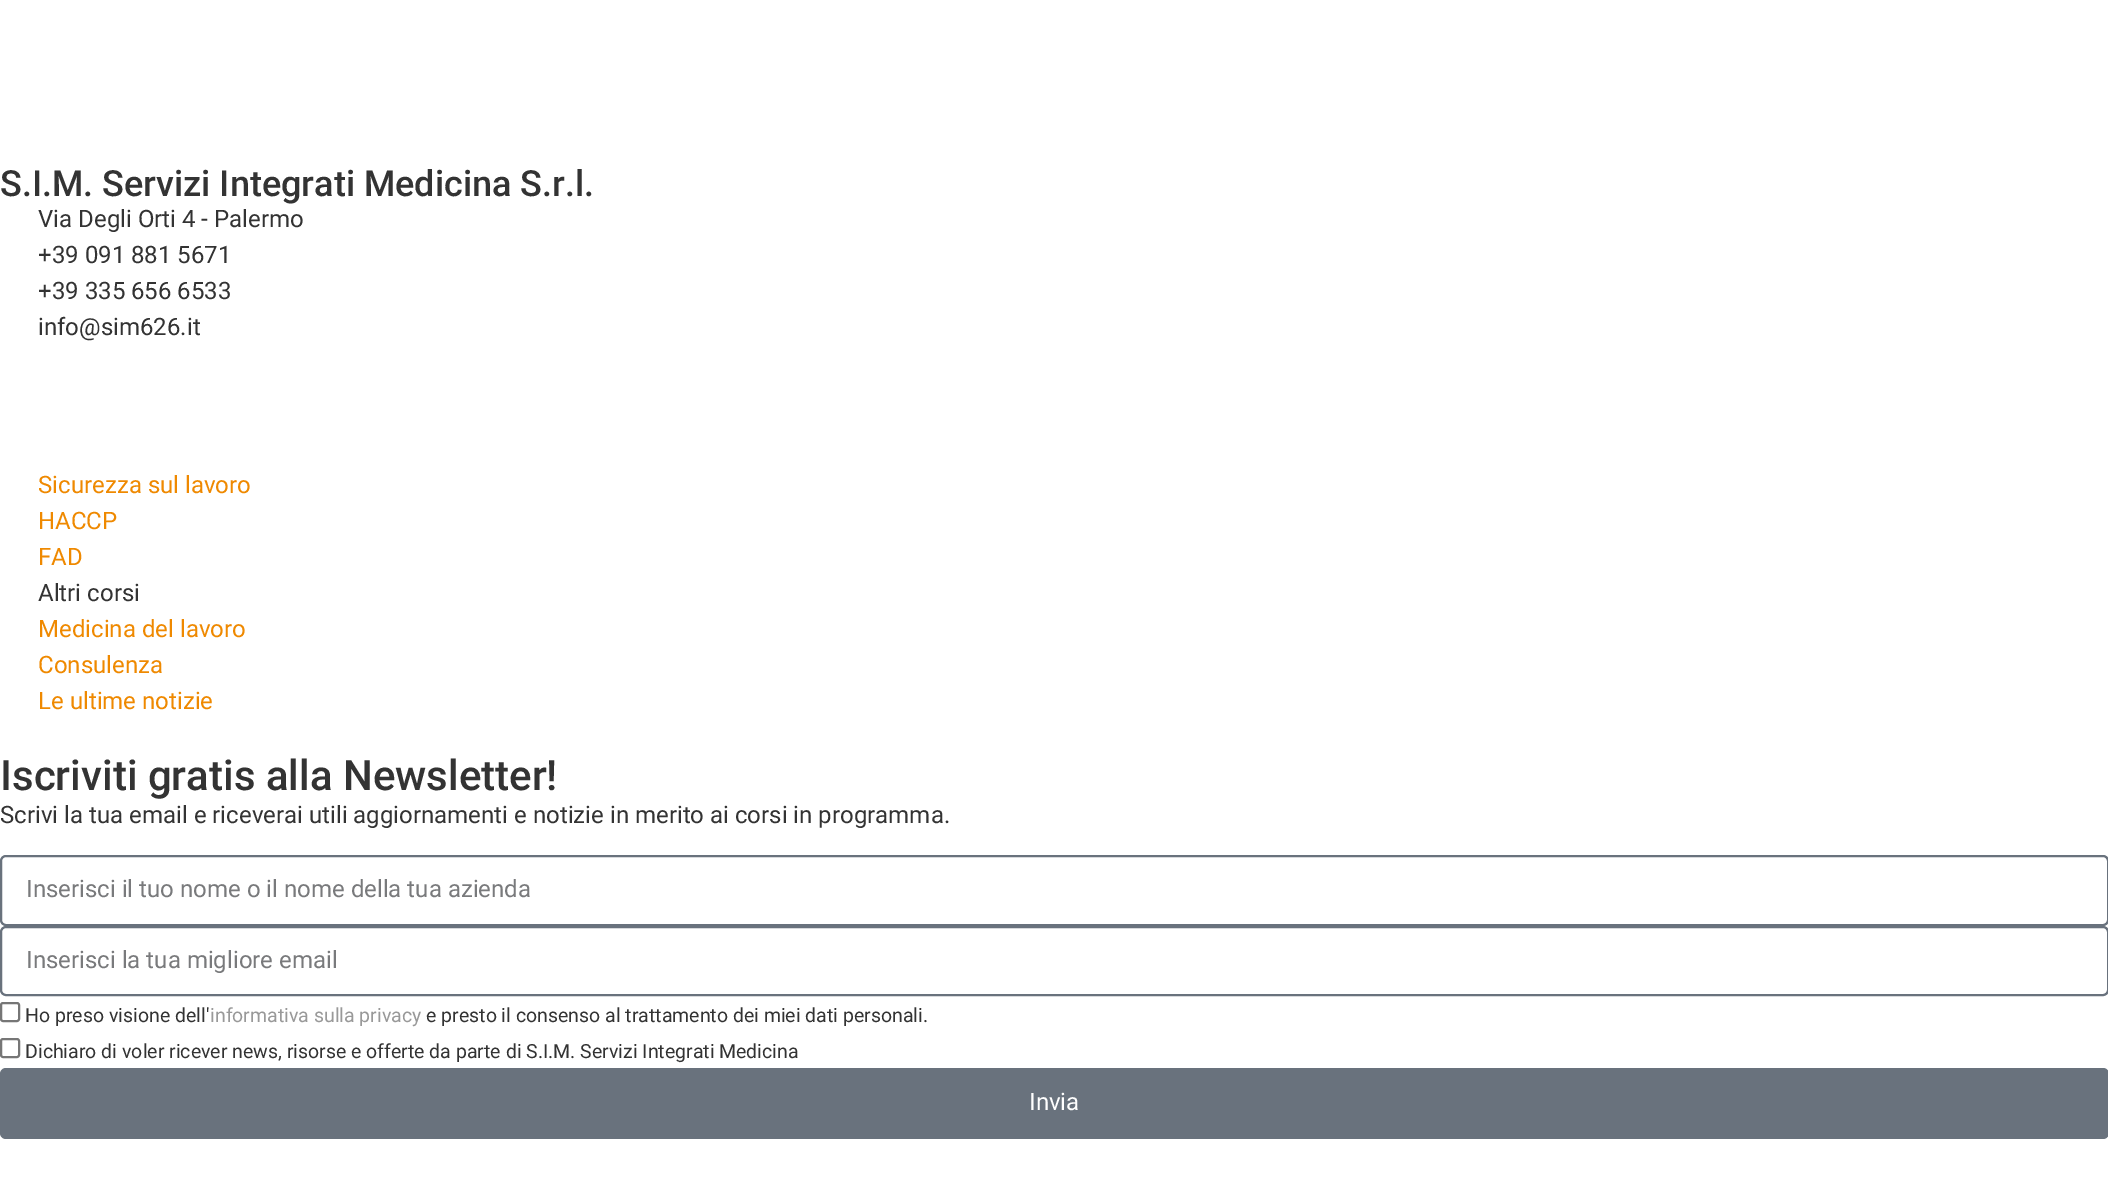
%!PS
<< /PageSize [2108 1191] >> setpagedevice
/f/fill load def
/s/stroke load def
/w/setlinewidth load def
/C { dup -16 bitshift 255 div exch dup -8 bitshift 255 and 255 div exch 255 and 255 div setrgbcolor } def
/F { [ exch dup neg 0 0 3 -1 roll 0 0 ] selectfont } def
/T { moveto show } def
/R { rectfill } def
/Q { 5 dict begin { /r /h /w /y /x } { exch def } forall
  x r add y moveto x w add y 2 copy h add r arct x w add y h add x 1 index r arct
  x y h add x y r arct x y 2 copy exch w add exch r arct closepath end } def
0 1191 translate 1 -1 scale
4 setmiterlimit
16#FFFFFF C
0 0 2108 1191 R
/Roboto-Medium 36 F
16#333333 C
(S.I.M. Servizi Integrati Medicina S.r.l.) 0 196 T
/Roboto-Regular 24 F
(Via Degli Orti 4 - Palermo) 38 227 T
(+39 091 881 5671) 38 263 T
(+39 335 656 6533) 38 299 T
(info@sim626.it) 38 335 T
16#EF8900 C
(Sicurezza sul lavoro) 38 493 T
(HACCP) 38 529 T
(FAD) 38 565 T
16#333333 C
(Altri corsi) 38 601 T
16#EF8900 C
(Medicina del lavoro) 38 637 T
(Consulenza) 38 673 T
(Le ultime notizie) 38 709 T
/Roboto-Medium 42 F
16#333333 C
(Iscriviti gratis alla Newsletter!) 0 790 T
/Roboto-Regular 24 F
(Scrivi la tua email e riceverai utili aggiornamenti e notizie in merito ai corsi in programma.) 0 823 T
16#69727D C
2 w
1 856 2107 69 5 Q s
16#797A7C C
(Inserisci il tuo nome o il nome della tua azienda) 26 897 T
16#69727D C
1 927 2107 68 5 Q s
16#797A7C C
(Inserisci la tua migliore email) 26 968 T
16#767676 C
1 1003 18 18 2 Q s
/Roboto-Regular 19.5 F
16#333333 C
(Ho preso visione dell') 25 1022 T
16#999999 C
(informativa sulla privacy) 210 1022 T
16#333333 C
(e presto il consenso al trattamento dei miei dati personali.) 426 1022 T
16#767676 C
1 1039 18 18 2 Q s
16#333333 C
(Dichiaro di voler ricever news, risorse e offerte da parte di S.I.M. Servizi Integrati Medicina) 25 1058 T
16#69727D C
0 1068 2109 71 6 Q f
/Roboto-Regular 24 F
16#FFFFFF C
(Invia) 1029 1110 T
showpage
